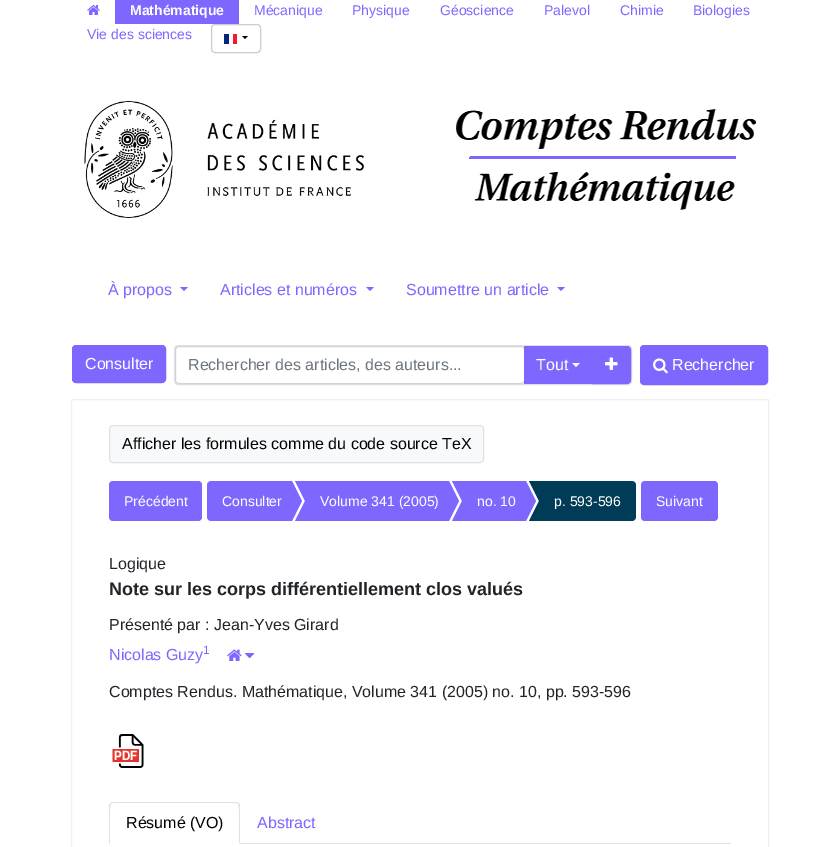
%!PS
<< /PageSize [839 847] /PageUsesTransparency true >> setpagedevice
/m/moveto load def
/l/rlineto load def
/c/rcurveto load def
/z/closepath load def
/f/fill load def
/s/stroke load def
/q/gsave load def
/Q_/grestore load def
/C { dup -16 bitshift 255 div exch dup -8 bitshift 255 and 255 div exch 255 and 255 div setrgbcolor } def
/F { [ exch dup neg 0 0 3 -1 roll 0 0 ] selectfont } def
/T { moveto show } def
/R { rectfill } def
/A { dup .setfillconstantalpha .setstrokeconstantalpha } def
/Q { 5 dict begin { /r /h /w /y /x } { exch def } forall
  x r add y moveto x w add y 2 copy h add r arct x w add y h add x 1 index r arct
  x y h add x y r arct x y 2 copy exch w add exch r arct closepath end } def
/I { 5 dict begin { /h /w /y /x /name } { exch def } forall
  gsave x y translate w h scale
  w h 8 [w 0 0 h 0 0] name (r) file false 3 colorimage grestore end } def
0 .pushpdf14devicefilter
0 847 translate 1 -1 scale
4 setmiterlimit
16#FFFFFF C
0 0 839 847 R
(1.rgb) 87 5 13 10 I
16#7D67FF C
115 0 124 24 R
/LiberationSans-Bold 14 F
16#FFFFFF C
(Mathématique) 130 15 T
/LiberationSans-Regular 14 F
16#7D67FF C
(Mécanique) 254 15 T
(Physique) 352 15 T
(Géoscience) 440 15 T
(Palevol) 544 15 T
(Chimie) 620 15 T
(Biologies) 693 15 T
(Vie des sciences) 87 39 T
16#CCCCCC C
211.5 24.5 49 28 3.5 Q s
16#00267F C
224 34 5 10 R
16#F31830 C
233 34 4 10 R
16#000000 C
242 36 m 6 0 l -3 3 l z f
(2.rgb) 84 101 281 117 I
(3.rgb) 456 109 300 101 I
/LiberationSans-Regular 16 F
16#7D67FF C
(À propos) 108 295 T
180 287 m 8 0 l -4 4 l z f
(Articles et numéros) 220 295 T
366 287 m 8 0 l -4 4 l z f
(Soumettre un article) 406 295 T
557 287 m 8 0 l -4 4 l z f
72.5 345.5 93 37 3.5 Q q f Q_
s
16#FFFFFF C
(Consulter) 85 369 T
16#DEE2E6 C
174.5 345.5 457 39 3.5 Q s
16#CED4DA C
175.5 346.5 349 37 3.5 Q s
16#6C757D C
(Rechercher des articles, des auteurs...) 188 370 T
16#7D67FF C
524 346 68 38 R
16#FFFFFF C
(Tout) 536 370 T
572 363 m 8 0 l -4 4 l z f
16#7D67FF C
592.5 346.5 m 34.5 0 l 2 0 3.5 1.5 3.5 3.5 c 0 30 l 0 2 -1.5 3.5 -3.5 3.5 c -34.5 0 l z q f Q_
s
(4.rgb) 605 357 13 13 I
640.5 345.5 127 39 3.5 Q q f Q_
s
(5.rgb) 653 358 15 16 I
16#FFFFFF C
(Rechercher) 672 370 T
0.06 A
16#000000 C
71.5 399.5 697 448 rectstroke
1 A
16#F8F9FA C
109.5 425.5 374 37 3.5 Q q f Q_
16#DEE2E6 C
s
16#000000 C
(Afficher les formules comme du code source TeX) 122 449 T
16#7D67FF C
109 481 93 40 4 Q f
/LiberationSans-Regular 14 F
16#FFFFFF C
(Précédent) 124 506 T
16#7D67FF C
211 481 m 81 0 l 0 40 l -81 0 l -2 0 -4 -2 -4 -4 c 0 -32 l 0 -2 2 -4 4 -4 c z f
16#FFFFFF C
(Consulter) 222 506 T
16#7D67FF C
292 521 m 0 -40 l 10 20 l z f
315 481 134 40 R
295 481 m 20 0 l -10 20 l z f
305 481 10 40 R
315 521 m -20 0 l 10 -20 l z f
16#FFFFFF C
(Volume 341 \(2005\)) 320 506 T
16#7D67FF C
449 521 m 0 -40 l 10 20 l z f
472 481 54 40 R
452 481 m 20 0 l -10 20 l z f
462 481 10 40 R
472 521 m -20 0 l 10 -20 l z f
16#FFFFFF C
(no. 10) 477 506 T
16#7D67FF C
526 521 m 0 -40 l 10 20 l z f
16#003C57 C
549 481 m 83 0 l 2 0 4 2 4 4 c 0 32 l 0 2 -2 4 -4 4 c -83 0 l z f
529 481 m 20 0 l -10 20 l z f
539 481 10 40 R
549 521 m -20 0 l 10 -20 l z f
16#FFFFFF C
(p. 593-596) 554 506 T
16#7D67FF C
641 481 77 40 4 Q f
16#FFFFFF C
(Suivant) 656 506 T
/LiberationSans-Regular 16 F
16#212529 C
(Logique) 109 569 T
/LiberationSans-Bold 18 F
(Note sur les corps différentiellement clos valués) 109 595 T
/LiberationSans-Regular 16 F
(Présenté par : Jean-Yves Girard) 109 630 T
16#7D67FF C
(Nicolas Guzy) 109 660 T
/LiberationSans-Regular 12 F
(1) 203 654 T
(6.rgb) 227 649 15 12 I
(7.rgb) 245 653 10 6 I
/LiberationSans-Regular 16 F
16#212529 C
(Comptes Rendus. Mathématique, Volume 341 \(2005\) no. 10, pp. 593-596) 109 697 T
(8.rgb) 112 734 32 34 I
16#DEE2E6 C
240 843 491 1 R
113 802 m -3 1 l 1 1 l 2 -1 l 123 0 l 2 1 l 1 -1 l -3 -1 l z f
240 844 m 0 -38 l 0 -1 0 -2 -1 -3 c -1 1 l 2 2 1 34 1 39 c z f
16#FFFFFF C
240 844 m -1 -1 l -129 0 l -1 1 l z f
16#DEE2E6 C
109 844 m 1 -1 l 0 -5 -1 -37 1 -39 c -1 -1 l -1 3 l z f
16#000000 C
(Résumé \(VO\)) 126 828 T
16#7D67FF C
(Abstract) 257 828 T
.poppdf14devicefilter showpage
